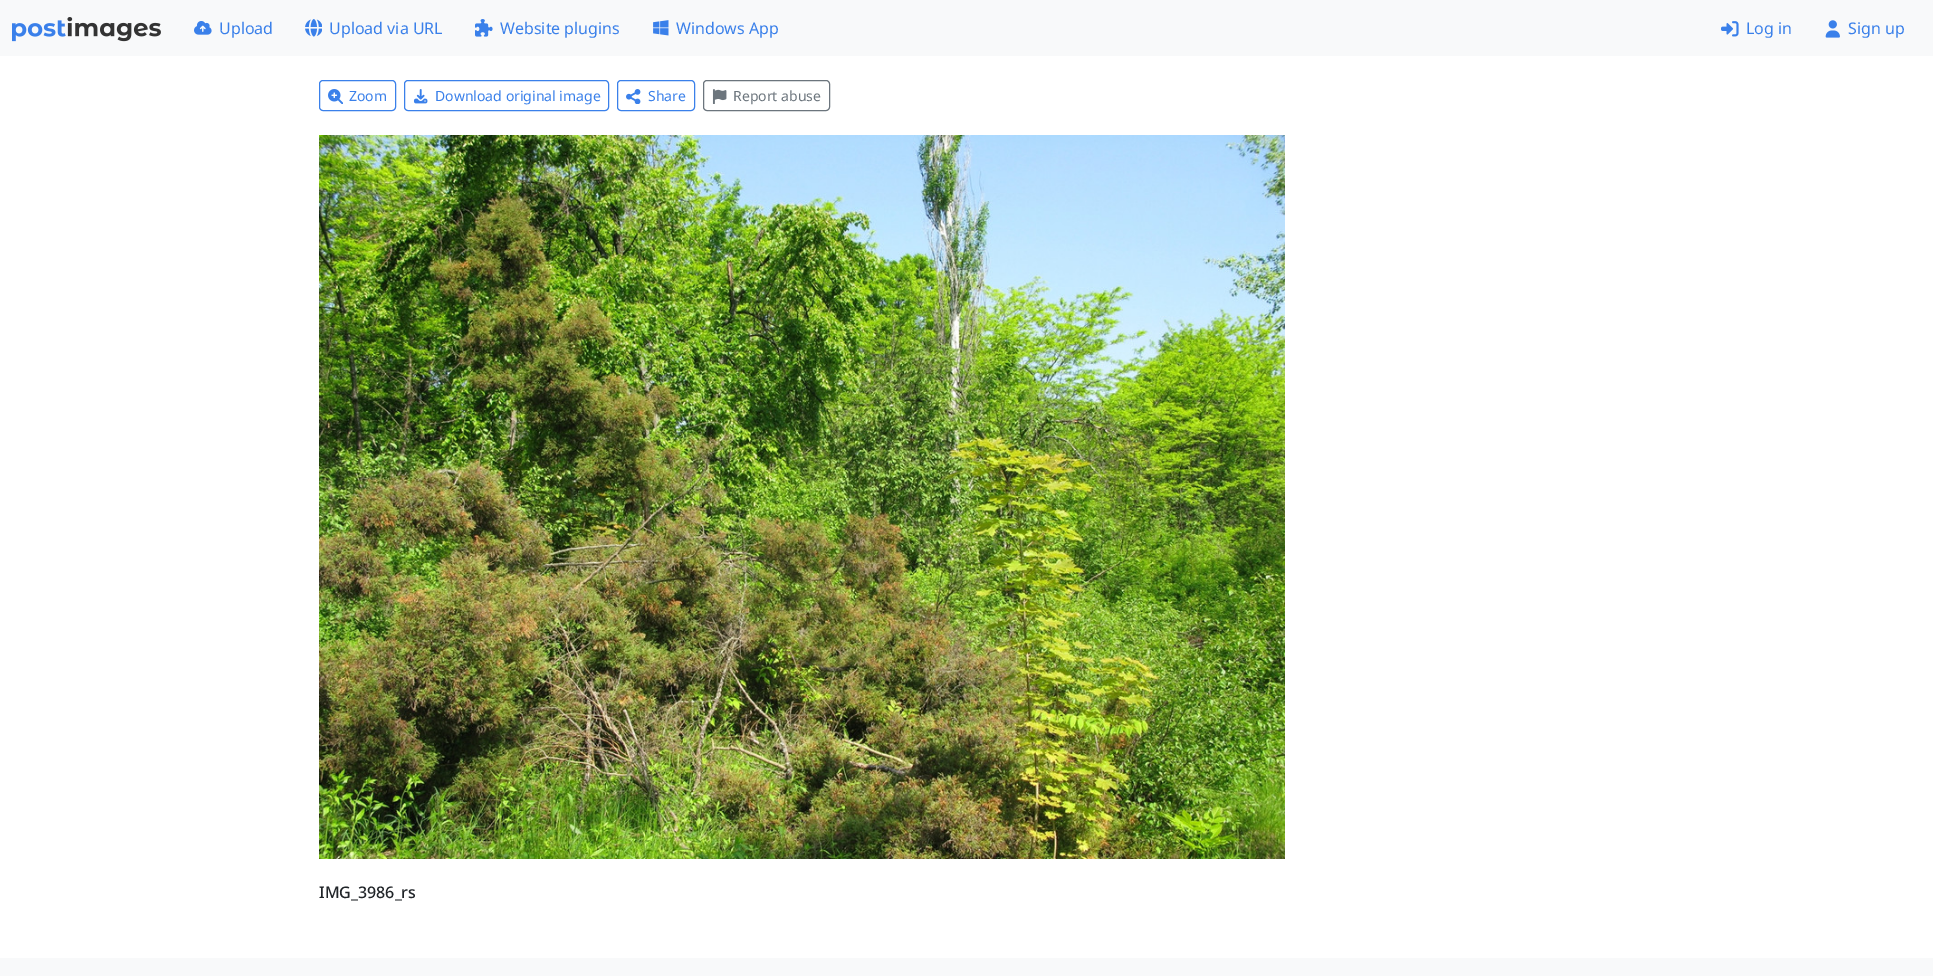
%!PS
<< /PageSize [1933 976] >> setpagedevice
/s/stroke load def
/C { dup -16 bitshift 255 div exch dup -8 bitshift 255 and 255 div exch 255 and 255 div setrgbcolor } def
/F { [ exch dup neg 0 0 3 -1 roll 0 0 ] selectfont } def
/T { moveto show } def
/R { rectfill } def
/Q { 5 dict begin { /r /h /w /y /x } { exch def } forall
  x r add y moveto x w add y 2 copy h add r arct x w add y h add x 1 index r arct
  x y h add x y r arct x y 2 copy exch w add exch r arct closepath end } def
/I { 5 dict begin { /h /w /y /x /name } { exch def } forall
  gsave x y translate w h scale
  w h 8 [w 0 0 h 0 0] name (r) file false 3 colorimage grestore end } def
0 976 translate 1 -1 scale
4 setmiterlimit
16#FFFFFF C
0 0 1933 976 R
16#F8F9FA C
0 0 1933 56 R
(1.rgb) 12 17 149 25 I
(2.rgb) 194 21 18 14 I
/NotoSans-Regular 16 F
16#3A80EA C
(Upload) 219 34 T
(3.rgb) 305 19 17 18 I
(Upload via URL) 329 34 T
(4.rgb) 475 19 18 18 I
(Website plugins) 500 34 T
(5.rgb) 653 20 16 16 I
(Windows App) 676 34 T
(6.rgb) 1721 21 18 16 I
(Log in) 1746 34 T
(7.rgb) 1825 20 15 18 I
(Sign up) 1848 34 T
319.5 80.5 76 30 3.5 Q s
(8.rgb) 328 89 15 15 I
/NotoSans-Regular 14 F
(Zoom) 349 101 T
404.5 80.5 204 30 3.5 Q s
(9.rgb) 413 89 15 15 I
(Download original image) 435 101 T
617.5 80.5 77 30 3.5 Q s
(10.rgb) 626 89 15 15 I
(Share) 648 101 T
16#6C757D C
703.5 80.5 126 30 3.5 Q s
(11.rgb) 712 89 15 15 I
(Report abuse) 733 101 T
(12.rgb) 319 135 966 724 I
/NotoSans-Medium 16 F
16#212529 C
(IMG_3986_rs) 319 898 T
16#F8F9FA C
0 958 1933 18 R
showpage
